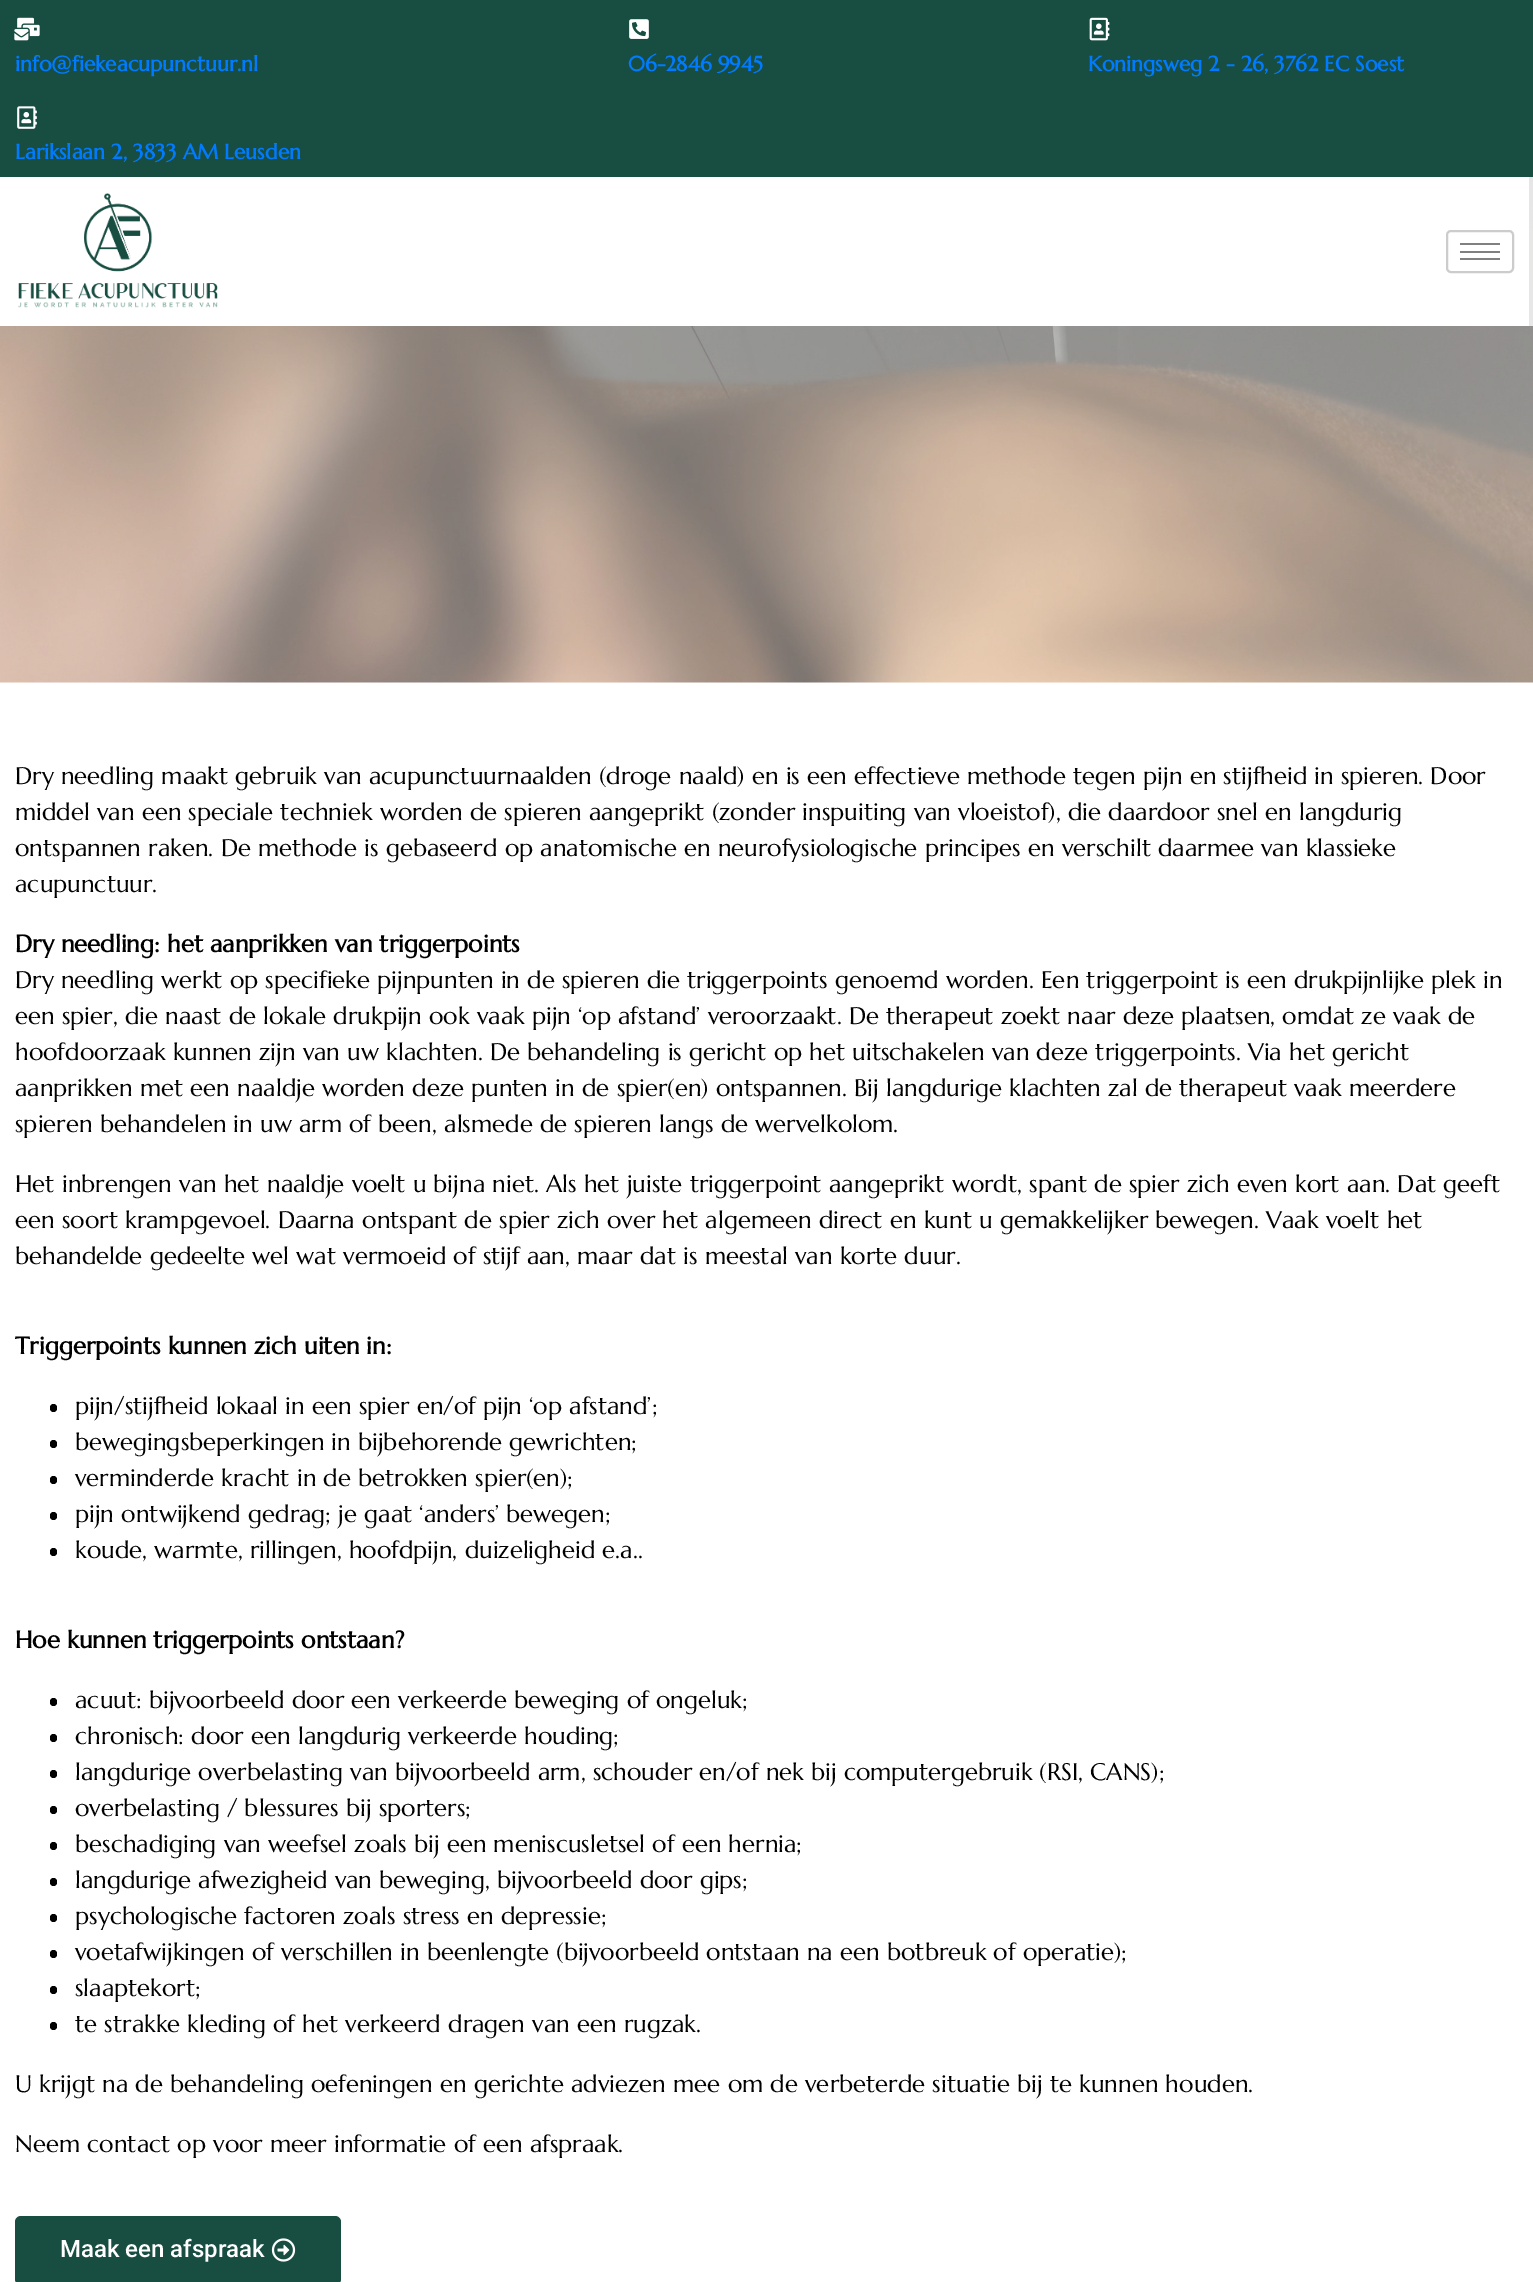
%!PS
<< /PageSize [1533 2282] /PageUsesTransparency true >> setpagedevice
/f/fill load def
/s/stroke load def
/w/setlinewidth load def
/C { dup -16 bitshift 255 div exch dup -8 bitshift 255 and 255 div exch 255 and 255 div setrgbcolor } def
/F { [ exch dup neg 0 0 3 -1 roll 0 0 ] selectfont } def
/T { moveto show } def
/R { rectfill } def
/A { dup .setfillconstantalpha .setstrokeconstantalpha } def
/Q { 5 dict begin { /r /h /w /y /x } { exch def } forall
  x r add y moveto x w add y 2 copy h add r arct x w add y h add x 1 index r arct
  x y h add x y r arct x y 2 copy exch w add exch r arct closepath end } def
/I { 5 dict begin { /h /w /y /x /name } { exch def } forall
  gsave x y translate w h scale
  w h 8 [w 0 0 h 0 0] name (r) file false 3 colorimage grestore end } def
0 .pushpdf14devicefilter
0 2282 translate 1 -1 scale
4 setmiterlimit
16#FFFFFF C
0 0 1533 2282 R
16#184D41 C
0 0 1533 177 R
(1.rgb) 14 17 26 24 I
/Marcellus-Bold 21 F
16#007BFF C
(info@fiekeacupunctuur.nl) 15 71 T
(2.rgb) 629 19 20 20 I
(06-2846 9945) 628 71 T
(3.rgb) 1089 17 21 24 I
(Koningsweg 2 - 26, 3762 EC Soest) 1088 71 T
(4.rgb) 17 106 20 23 I
(Larikslaan 2, 3833 AM Leusden) 15 159 T
(6.rgb) 0 177 1533 506 I
0.79 A
16#FFFFFF C
1529 177 4 149 R
1 A
0 177 1529 149 R
(5.rgb) 18 193 200 115 I
16#CCCCCC C
2 w
1447 231 66 41 4 Q s
16#808080 C
1460 243 40 2 R
1460 251 40 2 R
1460 258 40 2 R
/Marcellus-Regular 24 F
16#000000 C
(Dry needling maakt gebruik van acupunctuurnaalden \(droge naald\) en is een effectieve methode tegen pijn en stijfheid in spieren. Door) 15 784 T
(middel van een speciale techniek worden de spieren aangeprikt \(zonder inspuiting van vloeistof\), die daardoor snel en langdurig) 15 820 T
(ontspannen raken. De methode is gebaseerd op anatomische en neurofysiologische principes en verschilt daarmee van klassieke) 15 856 T
(acupunctuur.) 15 892 T
/Marcellus-Bold 24 F
(Dry needling: het aanprikken van triggerpoints) 15 952 T
/Marcellus-Regular 24 F
(Dry needling werkt op specifieke pijnpunten in de spieren die triggerpoints genoemd worden. Een triggerpoint is een drukpijnlijke plek in) 15 988 T
(een spier, die naast de lokale drukpijn ook vaak pijn ‘op afstand’ veroorzaakt. De therapeut zoekt naar deze plaatsen, omdat ze vaak de) 15 1024 T
(hoofdoorzaak kunnen zijn van uw klachten. De behandeling is gericht op het uitschakelen van deze triggerpoints. Via het gericht) 15 1060 T
(aanprikken met een naaldje worden deze punten in de spier\(en\) ontspannen. Bij langdurige klachten zal de therapeut vaak meerdere) 15 1096 T
(spieren behandelen in uw arm of been, alsmede de spieren langs de wervelkolom.) 15 1132 T
(Het inbrengen van het naaldje voelt u bijna niet. Als het juiste triggerpoint aangeprikt wordt, spant de spier zich even kort aan. Dat geeft) 15 1192 T
(een soort krampgevoel. Daarna ontspant de spier zich over het algemeen direct en kunt u gemakkelijker bewegen. Vaak voelt het) 15 1228 T
(behandelde gedeelte wel wat vermoeid of stijf aan, maar dat is meestal van korte duur.) 15 1264 T
/Marcellus-Bold 24 F
(Triggerpoints kunnen zich uiten in:) 15 1354 T
50 1404 7 8 3.5 Q f
/Marcellus-Regular 24 F
(pijn/stijfheid lokaal in een spier en/of pijn ‘op afstand’;) 75 1414 T
50 1440 7 8 3.5 Q f
(bewegingsbeperkingen in bijbehorende gewrichten;) 75 1450 T
50 1476 7 8 3.5 Q f
(verminderde kracht in de betrokken spier\(en\);) 75 1486 T
50 1512 7 8 3.5 Q f
(pijn ontwijkend gedrag; je gaat ‘anders’ bewegen;) 75 1522 T
50 1548 7 8 3.5 Q f
(koude, warmte, rillingen, hoofdpijn, duizeligheid e.a..) 75 1558 T
/Marcellus-Bold 24 F
(Hoe kunnen triggerpoints ontstaan?) 15 1648 T
50 1698 7 8 3.5 Q f
/Marcellus-Regular 24 F
(acuut: bijvoorbeeld door een verkeerde beweging of ongeluk;) 75 1708 T
50 1734 7 8 3.5 Q f
(chronisch: door een langdurig verkeerde houding;) 75 1744 T
50 1770 7 8 3.5 Q f
(langdurige overbelasting van bijvoorbeeld arm, schouder en/of nek bij computergebruik \(RSI, CANS\);) 75 1780 T
50 1806 7 8 3.5 Q f
(overbelasting / blessures bij sporters;) 75 1816 T
50 1842 7 8 3.5 Q f
(beschadiging van weefsel zoals bij een meniscusletsel of een hernia;) 75 1852 T
50 1878 7 8 3.5 Q f
(langdurige afwezigheid van beweging, bijvoorbeeld door gips;) 75 1888 T
50 1914 7 8 3.5 Q f
(psychologische factoren zoals stress en depressie;) 75 1924 T
50 1950 7 8 3.5 Q f
(voetafwijkingen of verschillen in beenlengte \(bijvoorbeeld ontstaan na een botbreuk of operatie\);) 75 1960 T
50 1986 7 8 3.5 Q f
(slaaptekort;) 75 1996 T
50 2022 7 8 3.5 Q f
(te strakke kleding of het verkeerd dragen van een rugzak.) 75 2032 T
(U krijgt na de behandeling oefeningen en gerichte adviezen mee om de verbeterde situatie bij te kunnen houden.) 15 2092 T
(Neem contact op voor meer informatie of een afspraak.) 15 2152 T
16#184D41 C
15 2216 326 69 6 Q f
/Roboto-Medium 24 F
16#FFFFFF C
(Maak een afspraak) 60 2257 T
(7.rgb) 271 2238 25 24 I
.poppdf14devicefilter showpage
